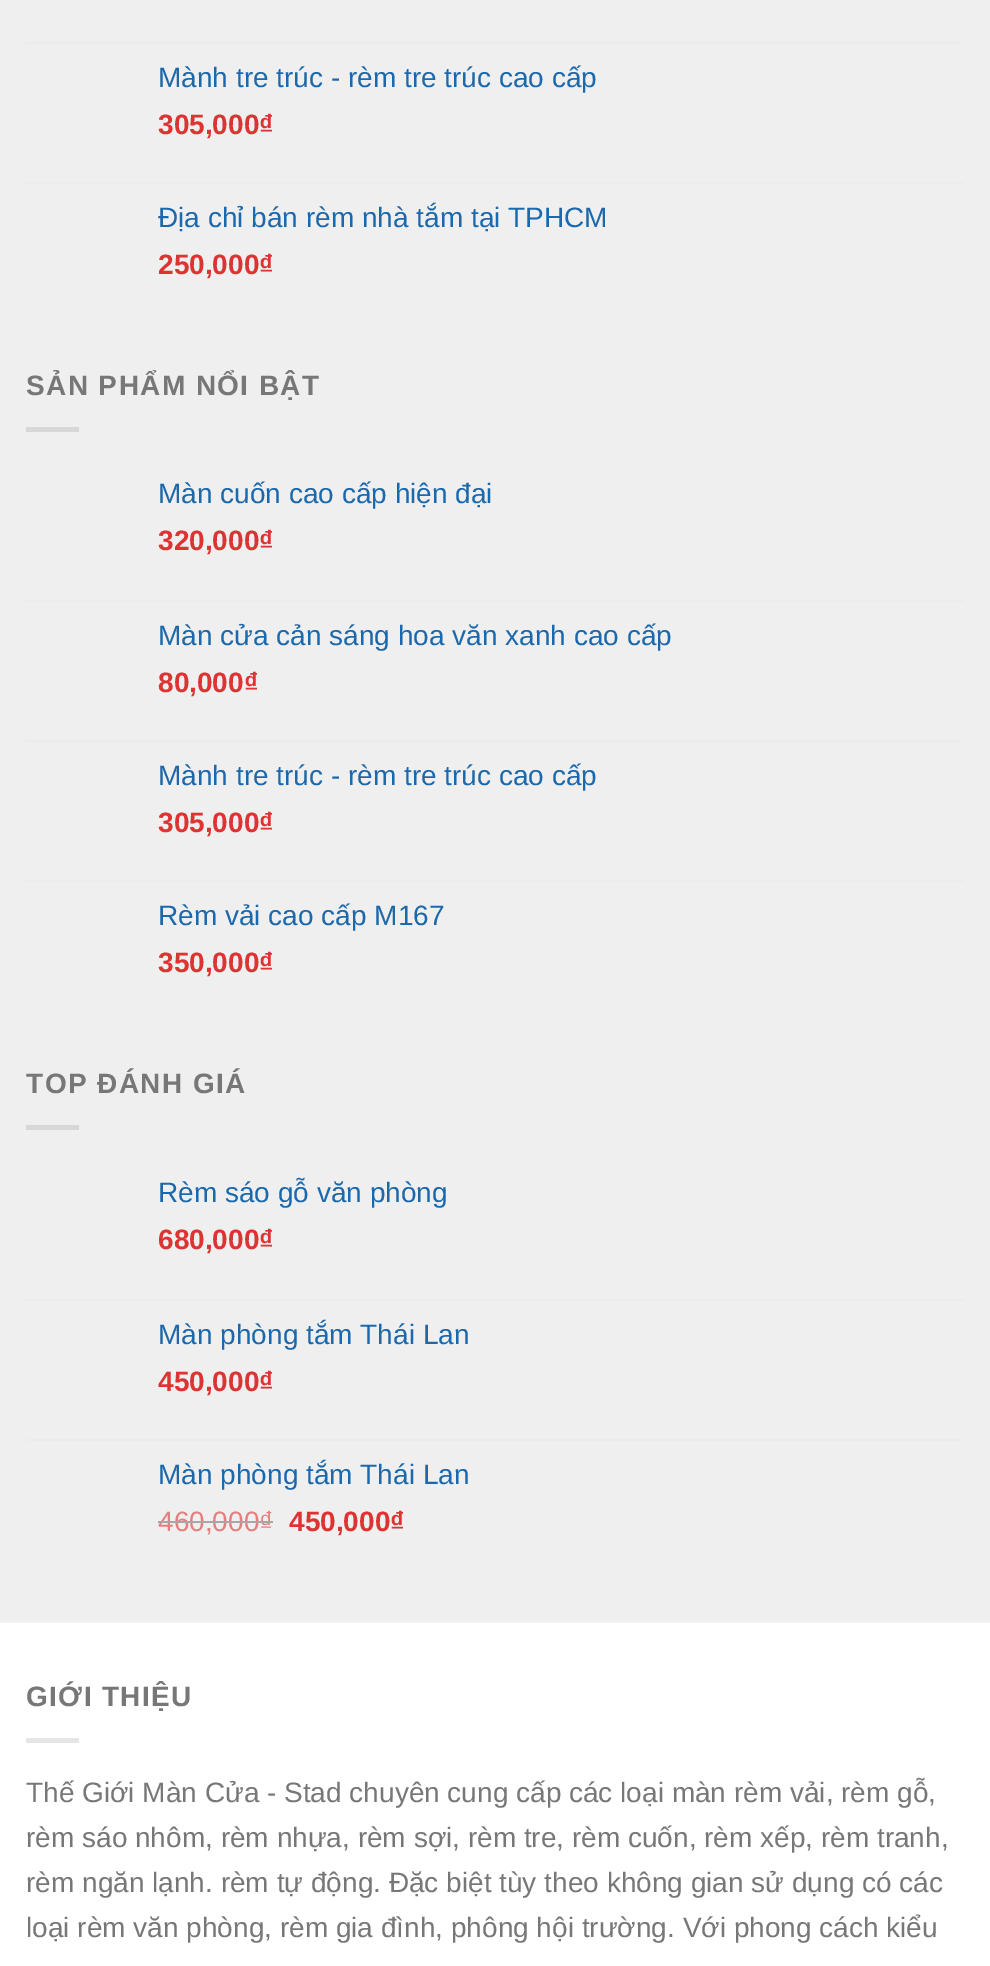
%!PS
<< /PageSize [990 1966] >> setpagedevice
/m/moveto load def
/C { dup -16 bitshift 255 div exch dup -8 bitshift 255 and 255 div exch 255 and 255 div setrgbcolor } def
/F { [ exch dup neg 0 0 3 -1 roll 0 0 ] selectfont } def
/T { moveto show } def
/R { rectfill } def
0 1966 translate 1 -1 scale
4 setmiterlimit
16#FFFFFF C
0 0 990 1966 R
16#EFEFEF C
0 0 990 1621 R
16#ECECEC C
26 42 938 2 R
/LiberationSans-Regular 28 F
16#1B68AC C
(Mành tre trúc - rèm tre trúc cao cấp) 158 87 T
/LiberationSans-Bold 28 F
16#DE3333 C
(305,000₫) 158 134 T
16#ECECEC C
26 182 938 2 R
/LiberationSans-Regular 28 F
16#1B68AC C
(Địa chỉ bán rèm nhà tắm tại TPHCM) 158 227 T
/LiberationSans-Bold 28 F
16#DE3333 C
(250,000₫) 158 274 T
16#777777 C
26 395 m 1.4 0 (SẢN PHẨM NỔI BẬT) ashow
16#D7D7D7 C
26 427 53 5 R
/LiberationSans-Regular 28 F
16#1B68AC C
(Màn cuốn cao cấp hiện đại) 158 503 T
/LiberationSans-Bold 28 F
16#DE3333 C
(320,000₫) 158 550 T
16#ECECEC C
26 600 938 2 R
/LiberationSans-Regular 28 F
16#1B68AC C
(Màn cửa cản sáng hoa văn xanh cao cấp) 158 645 T
/LiberationSans-Bold 28 F
16#DE3333 C
(80,000₫) 158 692 T
16#ECECEC C
26 740 938 2 R
/LiberationSans-Regular 28 F
16#1B68AC C
(Mành tre trúc - rèm tre trúc cao cấp) 158 785 T
/LiberationSans-Bold 28 F
16#DE3333 C
(305,000₫) 158 832 T
16#ECECEC C
26 880 938 2 R
/LiberationSans-Regular 28 F
16#1B68AC C
(Rèm vải cao cấp M167) 158 925 T
/LiberationSans-Bold 28 F
16#DE3333 C
(350,000₫) 158 972 T
16#777777 C
26 1093 m 1.4 0 (TOP ĐÁNH GIÁ) ashow
16#D7D7D7 C
26 1125 53 5 R
/LiberationSans-Regular 28 F
16#1B68AC C
(Rèm sáo gỗ văn phòng) 158 1202 T
/LiberationSans-Bold 28 F
16#DE3333 C
(680,000₫) 158 1249 T
16#ECECEC C
26 1299 938 2 R
/LiberationSans-Regular 28 F
16#1B68AC C
(Màn phòng tắm Thái Lan) 158 1344 T
/LiberationSans-Bold 28 F
16#DE3333 C
(450,000₫) 158 1391 T
16#ECECEC C
26 1439 938 2 R
/LiberationSans-Regular 28 F
16#1B68AC C
(Màn phòng tắm Thái Lan) 158 1484 T
16#E57E7E C
(460,000₫) 158 1531 T
16#A7A7A7 C
158 1521 115 2 R
/LiberationSans-Bold 28 F
16#DE3333 C
(450,000₫) 289 1531 T
16#F2F2F2 C
0 1621 990 2 R
16#777777 C
26 1706 m 1.4 0 (GIỚI THIỆU) ashow
16#E6E6E6 C
26 1738 53 5 R
/LiberationSans-Regular 28 F
16#777777 C
(Thế Giới Màn Cửa - Stad chuyên cung cấp các loại màn rèm vải, rèm gỗ,) 26 1802 T
(rèm sáo nhôm, rèm nhựa, rèm sợi, rèm tre, rèm cuốn, rèm xếp, rèm tranh,) 26 1847 T
(rèm ngăn lạnh. rèm tự động. Đặc biệt tùy theo không gian sử dụng có các) 26 1892 T
(loại rèm văn phòng, rèm gia đình, phông hội trường. Với phong cách kiểu) 26 1937 T
showpage
